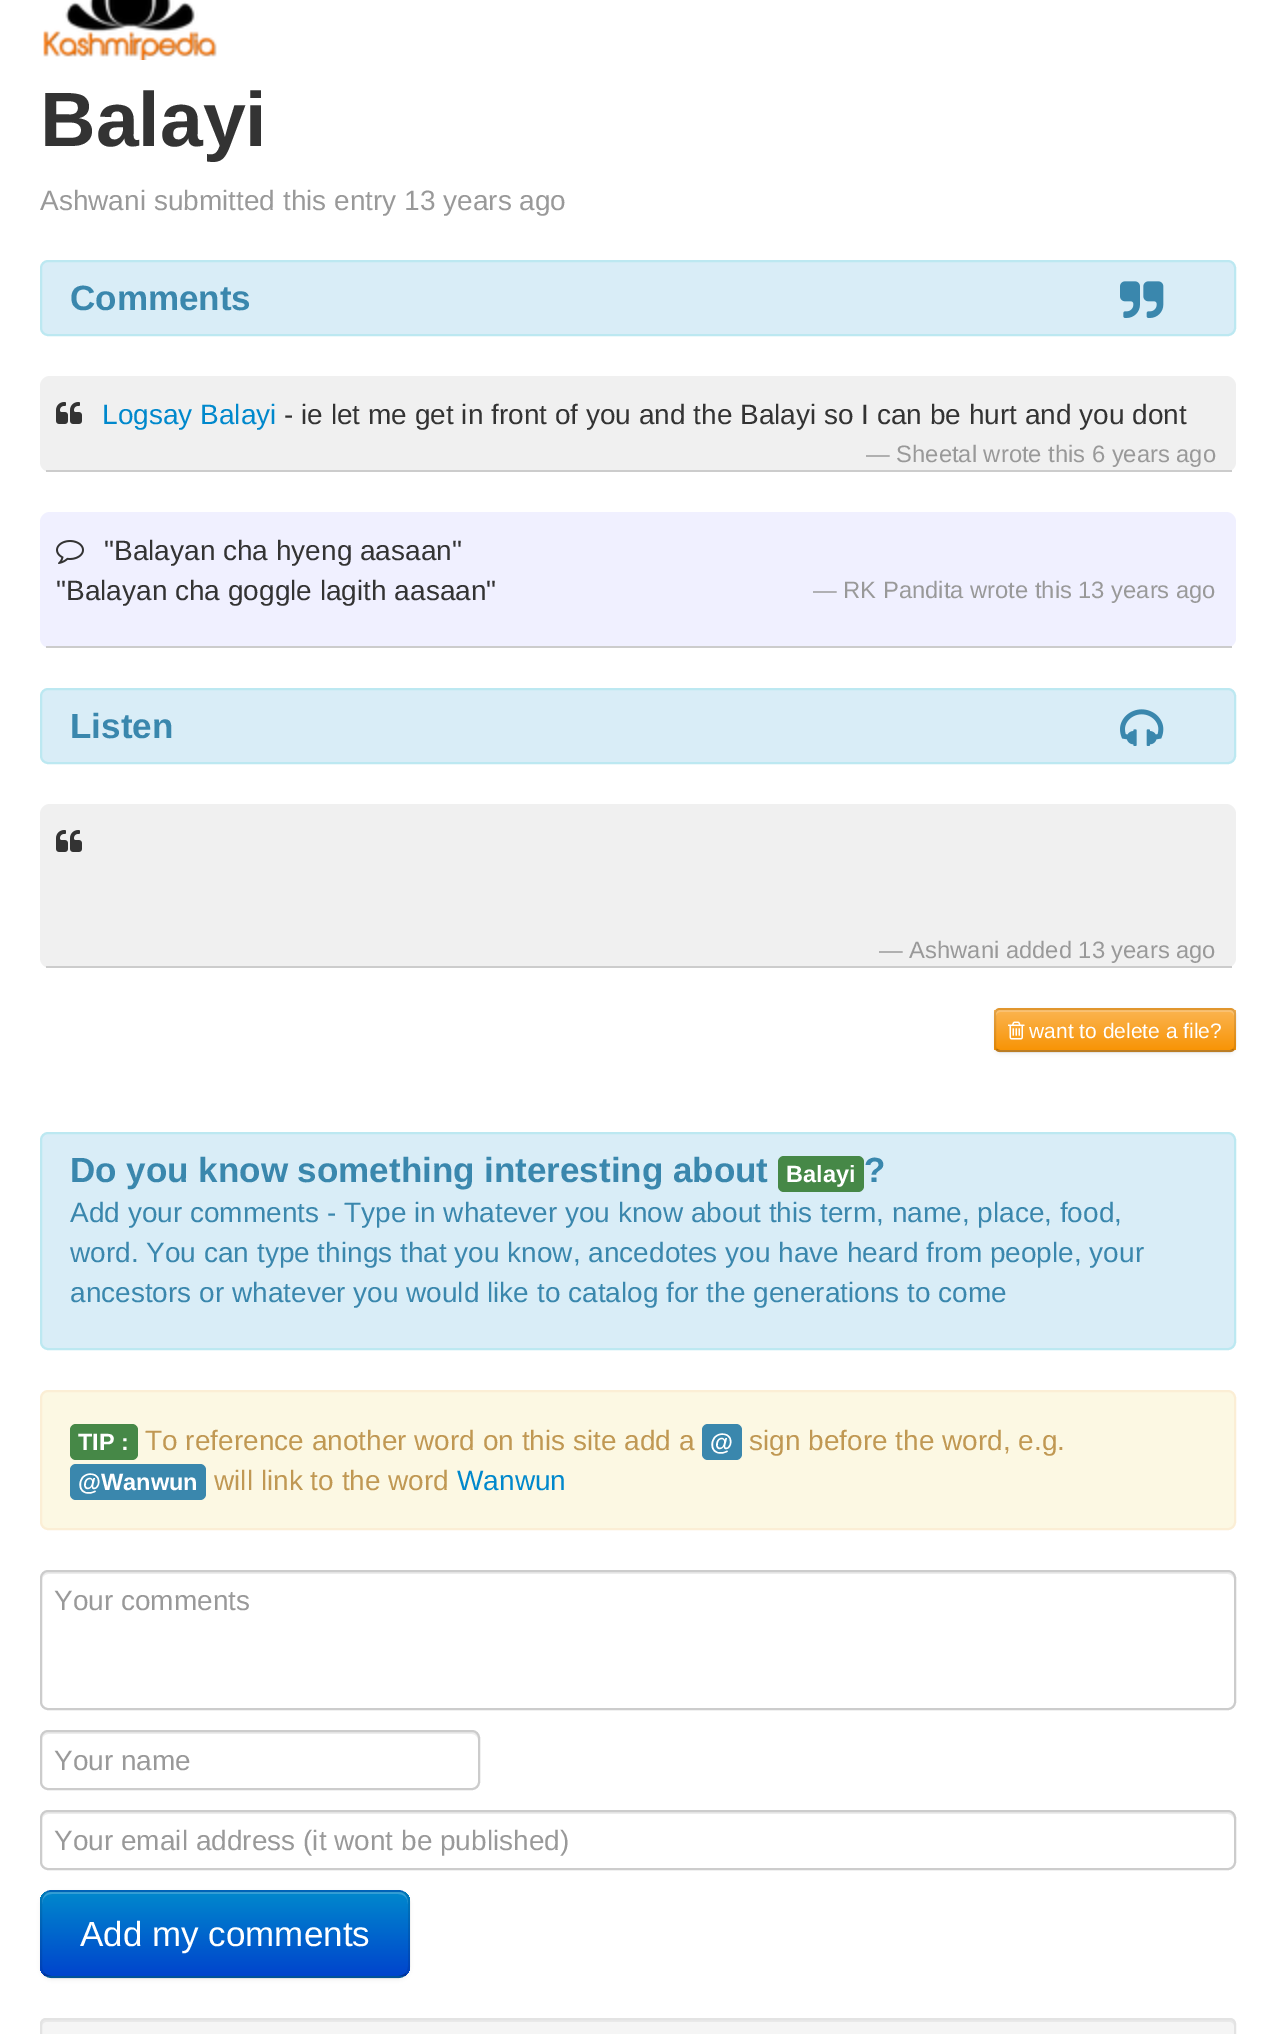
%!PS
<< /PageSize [1275 2034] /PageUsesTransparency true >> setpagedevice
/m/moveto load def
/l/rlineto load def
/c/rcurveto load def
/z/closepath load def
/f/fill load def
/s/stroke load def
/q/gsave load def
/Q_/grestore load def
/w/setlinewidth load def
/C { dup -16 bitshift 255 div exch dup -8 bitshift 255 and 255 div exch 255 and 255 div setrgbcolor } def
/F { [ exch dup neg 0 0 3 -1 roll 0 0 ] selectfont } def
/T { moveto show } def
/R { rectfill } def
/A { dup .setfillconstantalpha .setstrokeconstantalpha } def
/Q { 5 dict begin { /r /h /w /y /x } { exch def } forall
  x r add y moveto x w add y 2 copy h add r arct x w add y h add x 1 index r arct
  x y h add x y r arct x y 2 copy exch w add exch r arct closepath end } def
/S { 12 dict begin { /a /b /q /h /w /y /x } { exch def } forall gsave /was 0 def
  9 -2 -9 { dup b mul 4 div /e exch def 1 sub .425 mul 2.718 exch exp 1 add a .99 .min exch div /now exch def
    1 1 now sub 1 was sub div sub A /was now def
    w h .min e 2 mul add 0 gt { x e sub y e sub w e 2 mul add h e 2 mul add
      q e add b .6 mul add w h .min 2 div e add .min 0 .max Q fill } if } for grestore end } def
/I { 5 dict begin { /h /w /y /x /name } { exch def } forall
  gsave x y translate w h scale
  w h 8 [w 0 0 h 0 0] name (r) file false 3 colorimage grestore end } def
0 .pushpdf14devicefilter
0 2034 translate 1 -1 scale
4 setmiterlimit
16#FFFFFF C
0 0 1275 2034 R
(1.rgb) 43 0 174 60 I
/LiberationSans-Bold 77 F
16#333333 C
(Balayi) 40 146 T
/LiberationSans-Regular 28 F
16#999999 C
(Ashwani submitted this entry 13 years ago) 40 210 T
16#D9EDF7 C
41 261 1194 74 7 Q q f Q_
16#BCE8F1 C
2 w
s
/LiberationSans-Bold 35 F
16#3A87AD C
(Comments) 70 310 T
(2.rgb) 1120 281 44 37 I
16#F0F0F0 C
40 376 1196 96 10 Q f
16#CCCCCC C
46 470 1186 2 R
(3.rgb) 56 402 26 22 I
/LiberationSans-Regular 28 F
16#0088CC C
(Logsay Balayi) 102 424 T
16#333333 C
(- ie let me get in front of you and the Balayi so I can be hurt and you dont) 284 424 T
/LiberationSans-Regular 23.75 F
16#999999 C
(— Sheetal wrote this 6 years ago) 866 462 T
16#F0F0FF C
40 512 1196 136 10 Q f
16#CCCCCC C
46 646 1186 2 R
(4.rgb) 56 540 28 24 I
/LiberationSans-Regular 28 F
16#333333 C
("Balayan cha hyeng aasaan") 104 560 T
("Balayan cha goggle lagith aasaan") 56 600 T
/LiberationSans-Regular 23.75 F
16#999999 C
(— RK Pandita wrote this 13 years ago) 813 598 T
16#D9EDF7 C
41 689 1194 74 7 Q q f Q_
16#BCE8F1 C
s
/LiberationSans-Bold 35 F
16#3A87AD C
(Listen) 70 738 T
(5.rgb) 1120 709 44 37 I
16#F0F0F0 C
40 804 1196 164 10 Q f
16#CCCCCC C
46 966 1186 2 R
(3.rgb) 56 830 26 22 I
/LiberationSans-Regular 23.75 F
16#999999 C
(— Ashwani added 13 years ago) 879 958 T
16#000000 C
994 1010 242 44 6 2 .05 S
16#FAA732 C
994 1008 242 44 6 Q f
q
994 1008 242 44 6 Q clip newpath
q 994 1010 m 242 0 l 0 40 l -242 0 l z clip newpath
<< /ShadingType 2 /ColorSpace /DeviceRGB /Coords [1115 1010 1115 1050] /Extend [true true] /Function << /FunctionType 2 /Domain [0 1] /C0 [.984 .706 .314] /C1 [.973 .58 .024] /N 1 >> >> shfill Q_
Q_
0.2 A
16#FFFFFF C
1000 1012 m 230 0 l 2 0 4 2 4 4 c 0 -2 l 0 -2 -2 -4 -4 -4 c -230 0 l -2 0 -4 2 -4 4 c 0 2 l 0 -2 2 -4 4 -4 c z f
0.25 A
16#000000 C
1233.5 1049.5 m -1 1 -2 1.5 -3.5 1.5 c -230 0 l -1.5 0 -2.5 -.5 -3.5 -1.5 c s
0.1 A
996.5 1049.5 m -1 -1 -1.5 -2 -1.5 -3.5 c 0 -32 l 0 -1.5 .5 -2.5 1.5 -3.5 c 1 -1 2 -1.5 3.5 -1.5 c 230 0 l 1.5 0 2.5 .5 3.5 1.5 c 1 1 1.5 2 1.5 3.5 c 0 32 l 0 1.5 -.5 2.5 -1.5 3.5 c s
1 A
(6.rgb) 1008 1021 17 19 I
/LiberationSans-Regular 21 F
16#FFFFFF C
(want to delete a file?) 1029 1038 T
16#D9EDF7 C
41 1133 1194 216 7 Q q f Q_
16#BCE8F1 C
s
/LiberationSans-Bold 35 F
16#3A87AD C
(Do you know something interesting about) 70 1182 T
16#468847 C
778 1156 86 36 6 Q f
/LiberationSans-Bold 23.5 F
16#FFFFFF C
(Balayi) 786 1182 T
/LiberationSans-Bold 35 F
16#3A87AD C
(?) 864 1182 T
/LiberationSans-Regular 28 F
(Add your comments - Type in whatever you know about this term, name, place, food,) 70 1222 T
(word. You can type things that you know, ancedotes you have heard from people, your) 70 1262 T
(ancestors or whatever you would like to catalog for the generations to come) 70 1302 T
16#FCF8E3 C
41 1391 1194 138 7 Q q f Q_
16#FBEED5 C
s
16#468847 C
70 1424 68 36 6 Q f
/LiberationSans-Bold 23.5 F
16#FFFFFF C
(TIP :) 78 1450 T
/LiberationSans-Regular 28 F
16#C09853 C
(To reference another word on this site add a) 145 1450 T
16#3A87AD C
702 1424 40 36 6 Q f
/LiberationSans-Bold 23.5 F
16#FFFFFF C
(@) 710 1450 T
/LiberationSans-Regular 28 F
16#C09853 C
(sign before the word, e.g.) 749 1450 T
16#3A87AD C
70 1464 136 36 6 Q f
/LiberationSans-Bold 23.5 F
16#FFFFFF C
(@Wanwun) 78 1490 T
/LiberationSans-Regular 28 F
16#C09853 C
(will link to the word) 214 1490 T
16#0088CC C
(Wanwun) 457 1490 T
16#ECECEC C
48 1574 m 1180 0 l 3 0 6 3 6 6 c 0 -2 l 0 -3 -3 -6 -6 -6 c -1180 0 l -3 0 -6 3 -6 6 c 0 2 l 0 -3 3 -6 6 -6 c z f
16#CCCCCC C
41 1571 1194 138 7 Q s
16#999999 C
(Your comments) 54 1610 T
16#ECECEC C
48 1734 m 424 0 l 3 0 6 3 6 6 c 0 -2 l 0 -3 -3 -6 -6 -6 c -424 0 l -3 0 -6 3 -6 6 c 0 2 l 0 -3 3 -6 6 -6 c z f
16#CCCCCC C
41 1731 438 58 7 Q s
16#999999 C
(Your name) 54 1770 T
16#ECECEC C
48 1814 m 1180 0 l 3 0 6 3 6 6 c 0 -2 l 0 -3 -3 -6 -6 -6 c -1180 0 l -3 0 -6 3 -6 6 c 0 2 l 0 -3 3 -6 6 -6 c z f
16#CCCCCC C
41 1811 1194 58 7 Q s
16#999999 C
(Your email address \(it wont be published\)) 54 1850 T
16#000000 C
40 1892 370 88 12 2 .05 S
16#006DCC C
40 1890 370 88 12 Q f
q
40 1890 370 88 12 Q clip newpath
q 40 1892 m 370 0 l 0 84 l -370 0 l z clip newpath
<< /ShadingType 2 /ColorSpace /DeviceRGB /Coords [225 1892 225 1976] /Extend [true true] /Function << /FunctionType 2 /Domain [0 1] /C0 [0 .533 .8] /C1 [0 .267 .8] /N 1 >> >> shfill Q_
Q_
0.2 A
16#FFFFFF C
52 1894 m 346 0 l 6 0 10 4 10 10 c 0 -5 -2 -11 -8 -12 c -350 0 l -6 1 -8 7 -8 12 c 0 -6 4 -10 10 -10 c z f
0.25 A
16#000000 C
406 1974 m -2.5 2 -5 3 -8 3 c -346 0 l -3 0 -5.5 -1 -8 -3 c s
0.1 A
44 1974 m -2 -2.5 -3 -5 -3 -8 c 0 -64 l 0 -3 1 -5.5 3 -8 c 2.5 -2 5 -3 8 -3 c 346 0 l 3 0 5.5 1 8 3 c 2 2.5 3 5 3 8 c 0 64 l 0 3 -1 5.5 -3 8 c s
/LiberationSans-Regular 35 F
1 A
16#FFFFFF C
(Add my comments) 80 1946 T
16#F5F5F5 C
40 2018 1196 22 6 Q f
16#E9E9E9 C
46 2022 m 1184 0 l 2 0 4 2 4 4 c 0 -2 l 0 -2 -2 -4 -4 -4 c -1184 0 l -2 0 -4 2 -4 4 c 0 2 l 0 -2 2 -4 4 -4 c z f
16#E3E3E3 C
41 2019 1194 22 5 Q s
.poppdf14devicefilter showpage
